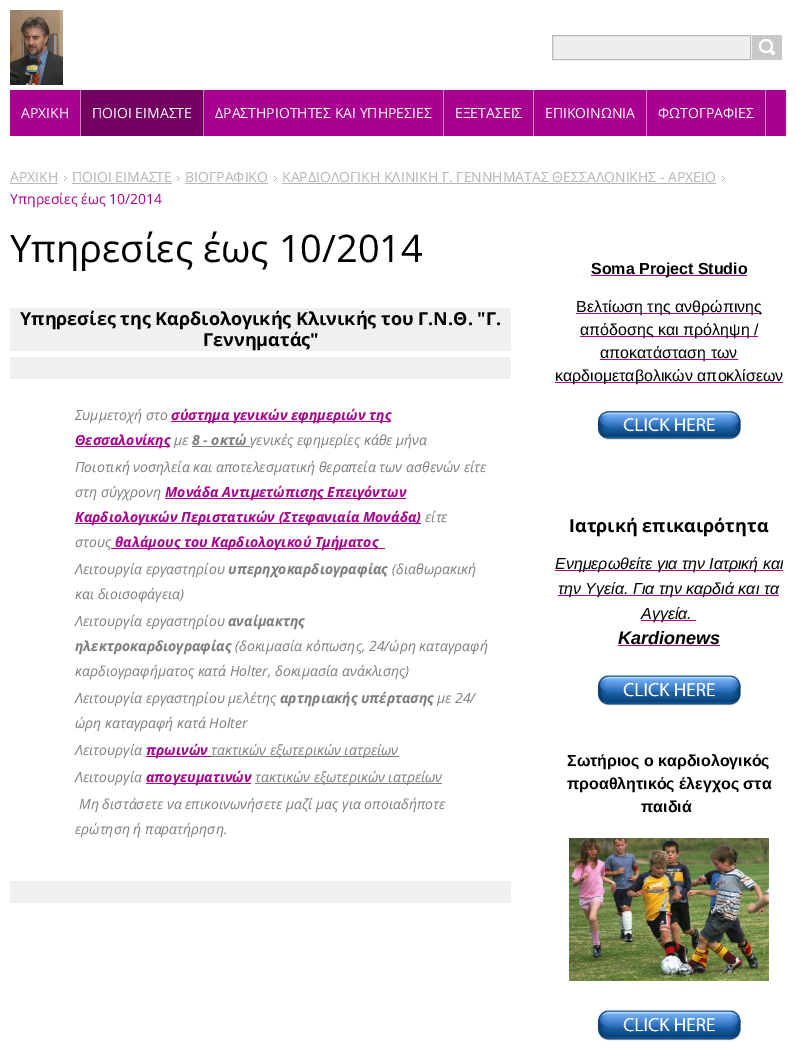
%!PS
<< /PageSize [796 1049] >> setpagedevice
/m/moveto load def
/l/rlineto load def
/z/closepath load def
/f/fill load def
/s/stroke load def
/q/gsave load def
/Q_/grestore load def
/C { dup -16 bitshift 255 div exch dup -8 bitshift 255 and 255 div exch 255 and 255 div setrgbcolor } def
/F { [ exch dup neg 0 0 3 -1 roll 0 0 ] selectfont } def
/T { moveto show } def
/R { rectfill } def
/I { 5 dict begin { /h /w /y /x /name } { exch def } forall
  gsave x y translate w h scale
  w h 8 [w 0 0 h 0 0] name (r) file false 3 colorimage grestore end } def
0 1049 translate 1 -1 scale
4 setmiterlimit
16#FFFFFF C
0 0 796 1049 R
(1.rgb) 10 10 53 75 I
16#EEEEEE C
552.5 35.5 m 198 0 l 0 24 l -198 0 l z q f Q_
16#BBBBBB C
s
16#C9C9C9 C
752 35 30 25 R
(2.rgb) 759 39 16 16 I
16#A9018F C
10 90 776 46 R
16#D480C7 C
80 90 1 46 R
/OpenSans-Regular 14 F
16#FFFFFF C
(ΑΡΧΙΚΗ) 21 118 T
16#740062 C
81 90 122 46 R
16#BA80B1 C
203 90 1 46 R
16#FFFFFF C
(ΠΟΙΟΙ ΕΙΜΑΣΤΕ) 92 118 T
16#D480C7 C
443 90 1 46 R
16#FFFFFF C
(ΔΡΑΣΤΗΡΙΟΤΗΤΕΣ ΚΑΙ ΥΠΗΡΕΣΙΕΣ) 215 118 T
16#D480C7 C
533 90 1 46 R
16#FFFFFF C
(ΕΞΕΤΑΣΕΙΣ) 455 118 T
16#D480C7 C
646 90 1 46 R
16#FFFFFF C
(ΕΠΙΚΟΙΝΩΝΙΑ) 545 118 T
16#D480C7 C
765 90 1 46 R
16#FFFFFF C
(ΦΩΤΟΓΡΑΦΙΕΣ) 658 118 T
16#B5B5B5 C
(ΑΡΧΙΚΗ) 10 182 T
10 183 48 1 R
(3.rgb) 64 176 3 5 I
(ΠΟΙΟΙ ΕΙΜΑΣΤΕ) 72 182 T
72 183 100 1 R
(3.rgb) 177 176 3 5 I
(ΒΙΟΓΡΑΦΙΚΟ) 185 182 T
185 183 83 1 R
(3.rgb) 274 176 3 5 I
(ΚΑΡΔΙΟΛΟΓΙΚΗ ΚΛΙΝΙΚΗ Γ. ΓΕΝΝΗΜΑΤΑΣ ΘΕΣΣΑΛΟΝΙΚΗΣ - ΑΡΧΕΙΟ) 282 182 T
282 183 434 1 R
(3.rgb) 722 176 3 5 I
16#A9018F C
(Υπηρεσίες έως 10/2014) 10 204 T
/OpenSans-Regular 38 F
16#000000 C
(Υπηρεσίες έως 10/2014) 10 262 T
16#F0F0F0 C
10 308 501 43 R
/OpenSans-Bold 18 F
16#000000 C
(Υπηρεσίες της Καρδιολογικής Κλινικής του Γ.Ν.Θ. "Γ.) 20 325 T
(Γεννηματάς") 203 346 T
16#F0F0F0 C
10 357 501 22 R
/OpenSans-Italic 14 F
16#7D7D7D C
(Συμμετοχή στο) 75 420 T
16#A9018F C
171 421 220 1 R
/OpenSans-BoldItalic 14 F
(σύστημα γενικών εφημεριών της) 171 420 T
75 446 95 1 R
(Θεσσαλονίκης) 75 445 T
/OpenSans-Italic 14 F
16#7D7D7D C
(με) 174 445 T
192 446 58 1 R
/OpenSans-BoldItalic 14 F
(8 - οκτώ) 192 445 T
/OpenSans-Italic 14 F
(γενικές εφημερίες κάθε μήνα) 250 445 T
(Ποιοτική νοσηλεία και αποτελεσματική θεραπεία των ασθενών είτε) 75 472 T
(στη σύγχρονη) 75 497 T
16#A9018F C
165 498 241 1 R
/OpenSans-BoldItalic 14 F
(Μονάδα Αντιμετώπισης Επειγόντων) 165 497 T
75 523 346 1 R
(Καρδιολογικών Περιστατικών \(Στεφανιαία Μονάδα\)) 75 522 T
/OpenSans-Italic 14 F
16#7D7D7D C
(είτε) 425 522 T
(στους) 75 547 T
16#A9018F C
111 548 274 1 R
/OpenSans-BoldItalic 14 F
(θαλάμους του Καρδιολογικού Τμήματος) 115 547 T
/OpenSans-Italic 14 F
16#7D7D7D C
(Λειτουργία εργαστηρίου) 75 574 T
/OpenSans-BoldItalic 14 F
(υπερηχοκαρδιογραφίας) 228 574 T
/OpenSans-Italic 14 F
(\(διαθωρακική) 392 574 T
(και διοισοφάγεια\)) 75 599 T
(Λειτουργία εργαστηρίου) 75 626 T
/OpenSans-BoldItalic 14 F
(αναίμακτης) 228 626 T
(ηλεκτροκαρδιογραφίας) 75 651 T
/OpenSans-Italic 14 F
(\(δοκιμασία κόπωσης, 24/ώρη καταγραφή) 235 651 T
(καρδιογραφήματος κατά Holter, δοκιμασία ανάκλισης\)) 75 676 T
(Λειτουργία εργαστηρίου μελέτης) 75 703 T
/OpenSans-BoldItalic 14 F
(αρτηριακής υπέρτασης) 280 703 T
/OpenSans-Italic 14 F
(με 24/) 437 703 T
(ώρη καταγραφή κατά Holter) 75 728 T
(Λειτουργία) 75 755 T
16#A9018F C
146 756 65 1 R
/OpenSans-BoldItalic 14 F
(πρωινών) 146 755 T
16#7D7D7D C
211 756 188 1 R
/OpenSans-Italic 14 F
(τακτικών εξωτερικών ιατρείων) 211 755 T
(Λειτουργία) 75 782 T
16#A9018F C
146 783 105 1 R
/OpenSans-BoldItalic 14 F
(απογευματινών) 146 782 T
16#7D7D7D C
255 783 187 1 R
/OpenSans-Italic 14 F
(τακτικών εξωτερικών ιατρείων) 255 782 T
(Μη διστάσετε να επικοινωνήσετε μαζί μας για οποιαδήποτε) 79 809 T
(ερώτηση ή παρατήρηση.) 75 834 T
16#F0F0F0 C
10 881 501 22 R
16#A9018F C
591 275 156 1 R
/LiberationSans-Bold 16 F
16#000000 C
(Soma Project Studio) 591 274 T
16#A9018F C
576 313 186 1 R
/LiberationSans-Regular 16 F
16#000000 C
(Βελτίωση της ανθρώπινης) 576 312 T
16#A9018F C
580 336 178 1 R
16#000000 C
(απόδοσης και πρόληψη /) 580 335 T
16#A9018F C
600 359 138 1 R
16#000000 C
(αποκατάσταση των) 600 358 T
16#A9018F C
555 382 228 1 R
16#000000 C
(καρδιομεταβολικών αποκλίσεων) 555 381 T
(4.rgb) 597 410 145 30 I
/OpenSans-Bold 18 F
(Ιατρική επικαιρότητα) 569 532 T
16#A9018F C
555 570 228 1 R
/LiberationSans-Italic 16 F
16#000000 C
(Ενημερωθείτε για την Ιατρική και) 555 569 T
16#A9018F C
558 595 221 1 R
16#000000 C
(την Υγεία. Για την καρδιά και τα) 558 594 T
16#A9018F C
641 620 55 1 R
16#000000 C
(Αγγεία.) 641 619 T
/LiberationSans-BoldItalic 18 F
(Kardionews) 618 644 T
16#A9018F C
618 645 102 1 R
(5.rgb) 597 674 145 32 I
/LiberationSans-Bold 16 F
16#000000 C
(Σωτήριος ο καρδιολογικός) 567 766 T
(προαθλητικός έλεγχος στα) 567 789 T
(παιδιά) 641 812 T
(6.rgb) 569 838 200 143 I
(7.rgb) 597 1009 145 32 I
showpage
